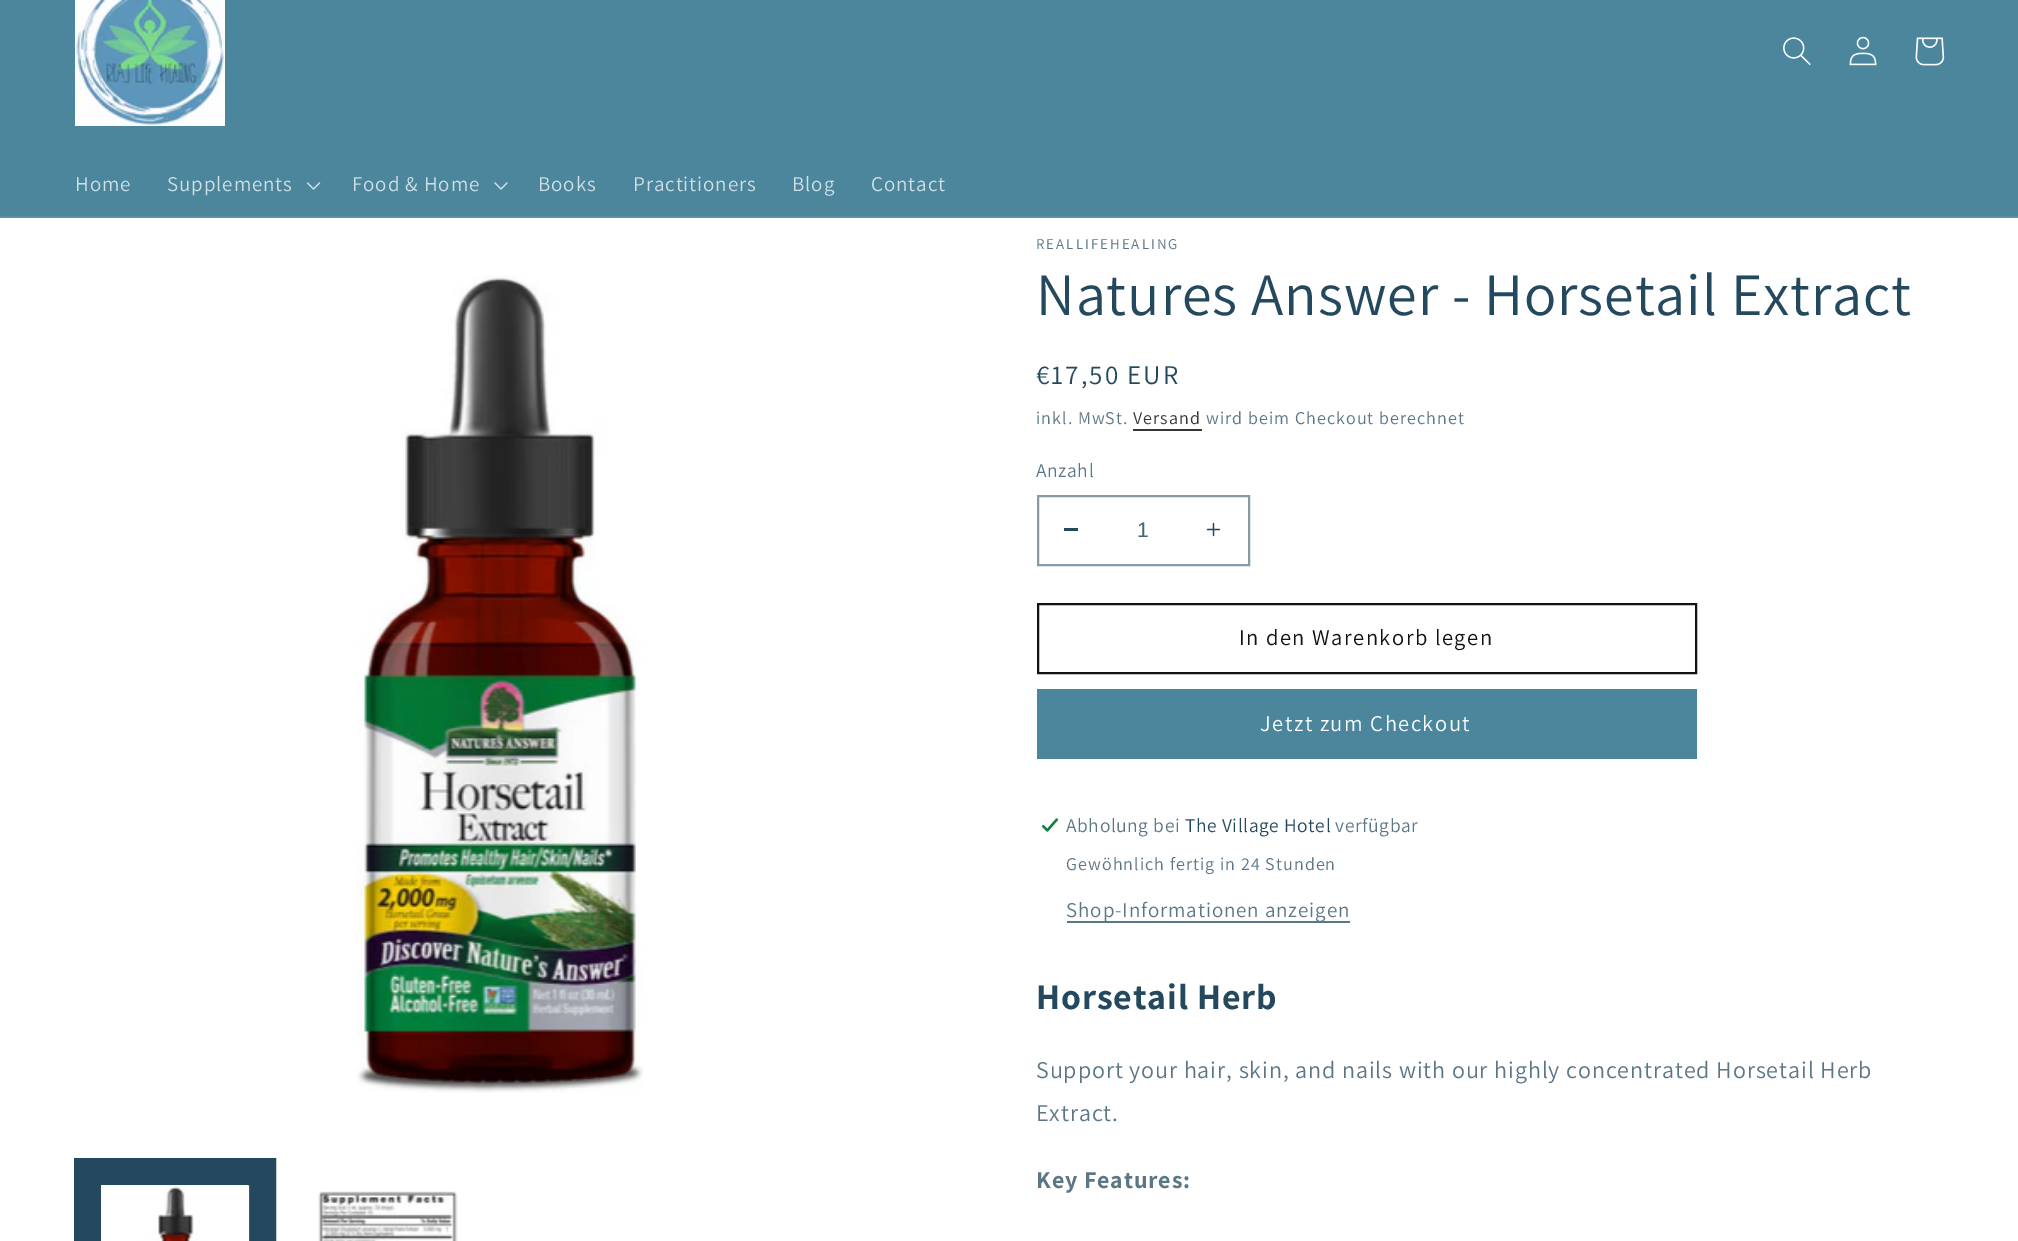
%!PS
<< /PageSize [2018 1241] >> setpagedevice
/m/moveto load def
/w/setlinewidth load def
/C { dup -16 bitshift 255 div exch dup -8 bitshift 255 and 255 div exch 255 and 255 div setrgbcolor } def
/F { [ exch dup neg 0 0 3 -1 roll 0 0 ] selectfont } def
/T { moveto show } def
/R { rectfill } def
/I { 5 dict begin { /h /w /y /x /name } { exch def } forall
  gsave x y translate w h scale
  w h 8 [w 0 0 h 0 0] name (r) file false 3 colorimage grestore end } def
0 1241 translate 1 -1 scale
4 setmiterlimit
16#FFFFFF C
0 0 2018 1241 R
16#4B869C C
0 0 2018 216 R
16#5990A4 C
0 216 2018 2 R
(1.rgb) 75 0 150 126 I
(2.rgb) 1783 37 28 28 I
(3.rgb) 1849 36 28 30 I
(4.rgb) 1915 37 30 29 I
/Assistant-Regular 21 F
16#CEE0E6 C
75 191 m .9 0 (Home) ashow
167 191 m .9 0 (Supplements) ashow
(5.rgb) 306 182 15 8 I
352 191 m .9 0 (Food & Home) ashow
(6.rgb) 494 182 14 8 I
538 191 m .9 0 (Books) ashow
633 191 m .9 0 (Practitioners) ashow
792 191 m .9 0 (Blog) ashow
871 191 m .9 0 (Contact) ashow
(7.rgb) 356 275 288 818 I
16#24495E C
2 w
75 1159 200 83 rectstroke
26 w
88 1173 174 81 rectstroke
(8.rgb) 101 1185 149 56 I
(9.rgb) 317 1191 141 50 I
/Assistant-Regular 15 F
16#5B7786 C
1036 249 m 2 0 (REALLIFEHEALING) ashow
/Assistant-Regular 60 F
16#24495E C
1036 315 m .9 0 (Natures Answer - Horsetail Extract) ashow
/Assistant-Regular 27 F
1036 384 m 2 0 (€17,50 EUR) ashow
/Assistant-Regular 18 F
16#5B7786 C
1036 424 m 1.05 0 (inkl. MwSt.) ashow
16#363636 C
1133 424 m 1.05 0 (Versand) ashow
1133 429 69 2 R
16#5B7786 C
1206 424 m 1.05 0 (wird beim Checkout berechnet) ashow
/Assistant-Regular 19.5 F
1036 477 m .6 0 (Anzahl) ashow
16#24495E C
1064 528 14 3 R
(10.rgb) 1206 522 15 15 I
16#879BA6 C
2 w
1038 496 211 69 rectstroke
/LiberationSans-Regular 21 F
16#456476 C
(1) 1137 537 T
16#121212 C
1038 604 658 69 rectstroke
/Assistant-Regular 22.5 F
1239 645 m 1.5 0 (In den Warenkorb legen) ashow
16#4B869C C
1037 689 660 70 R
16#FAFEFF C
1260 731 m 1.5 0 (Jetzt zum Checkout) ashow
(11.rgb) 1041 818 18 14 I
/Assistant-Regular 19.5 F
16#5B7786 C
1066 832 m .6 0 (Abholung bei) ashow
16#24495E C
1185 832 m .6 0 (The Village Hotel) ashow
16#5B7786 C
1335 832 m .6 0 (verfügbar) ashow
/Assistant-Regular 18 F
1066 870 m 1.05 0 (Gewöhnlich fertig in 24 Stunden) ashow
1067 921 283 2 R
/Assistant-Regular 21 F
1066 917 m .9 0 (Shop-Informationen anzeigen) ashow
/Assistant-Bold 36 F
16#24495E C
1036 1009 m .9 0 (Horsetail Herb) ashow
/Assistant-Regular 24 F
16#5B7786 C
1036 1078 m .9 0 (Support your hair, skin, and nails with our highly concentrated Horsetail Herb) ashow
1036 1121 m .9 0 (Extract.) ashow
/Assistant-Bold 24 F
1036 1188 m .9 0 (Key Features:) ashow
showpage
